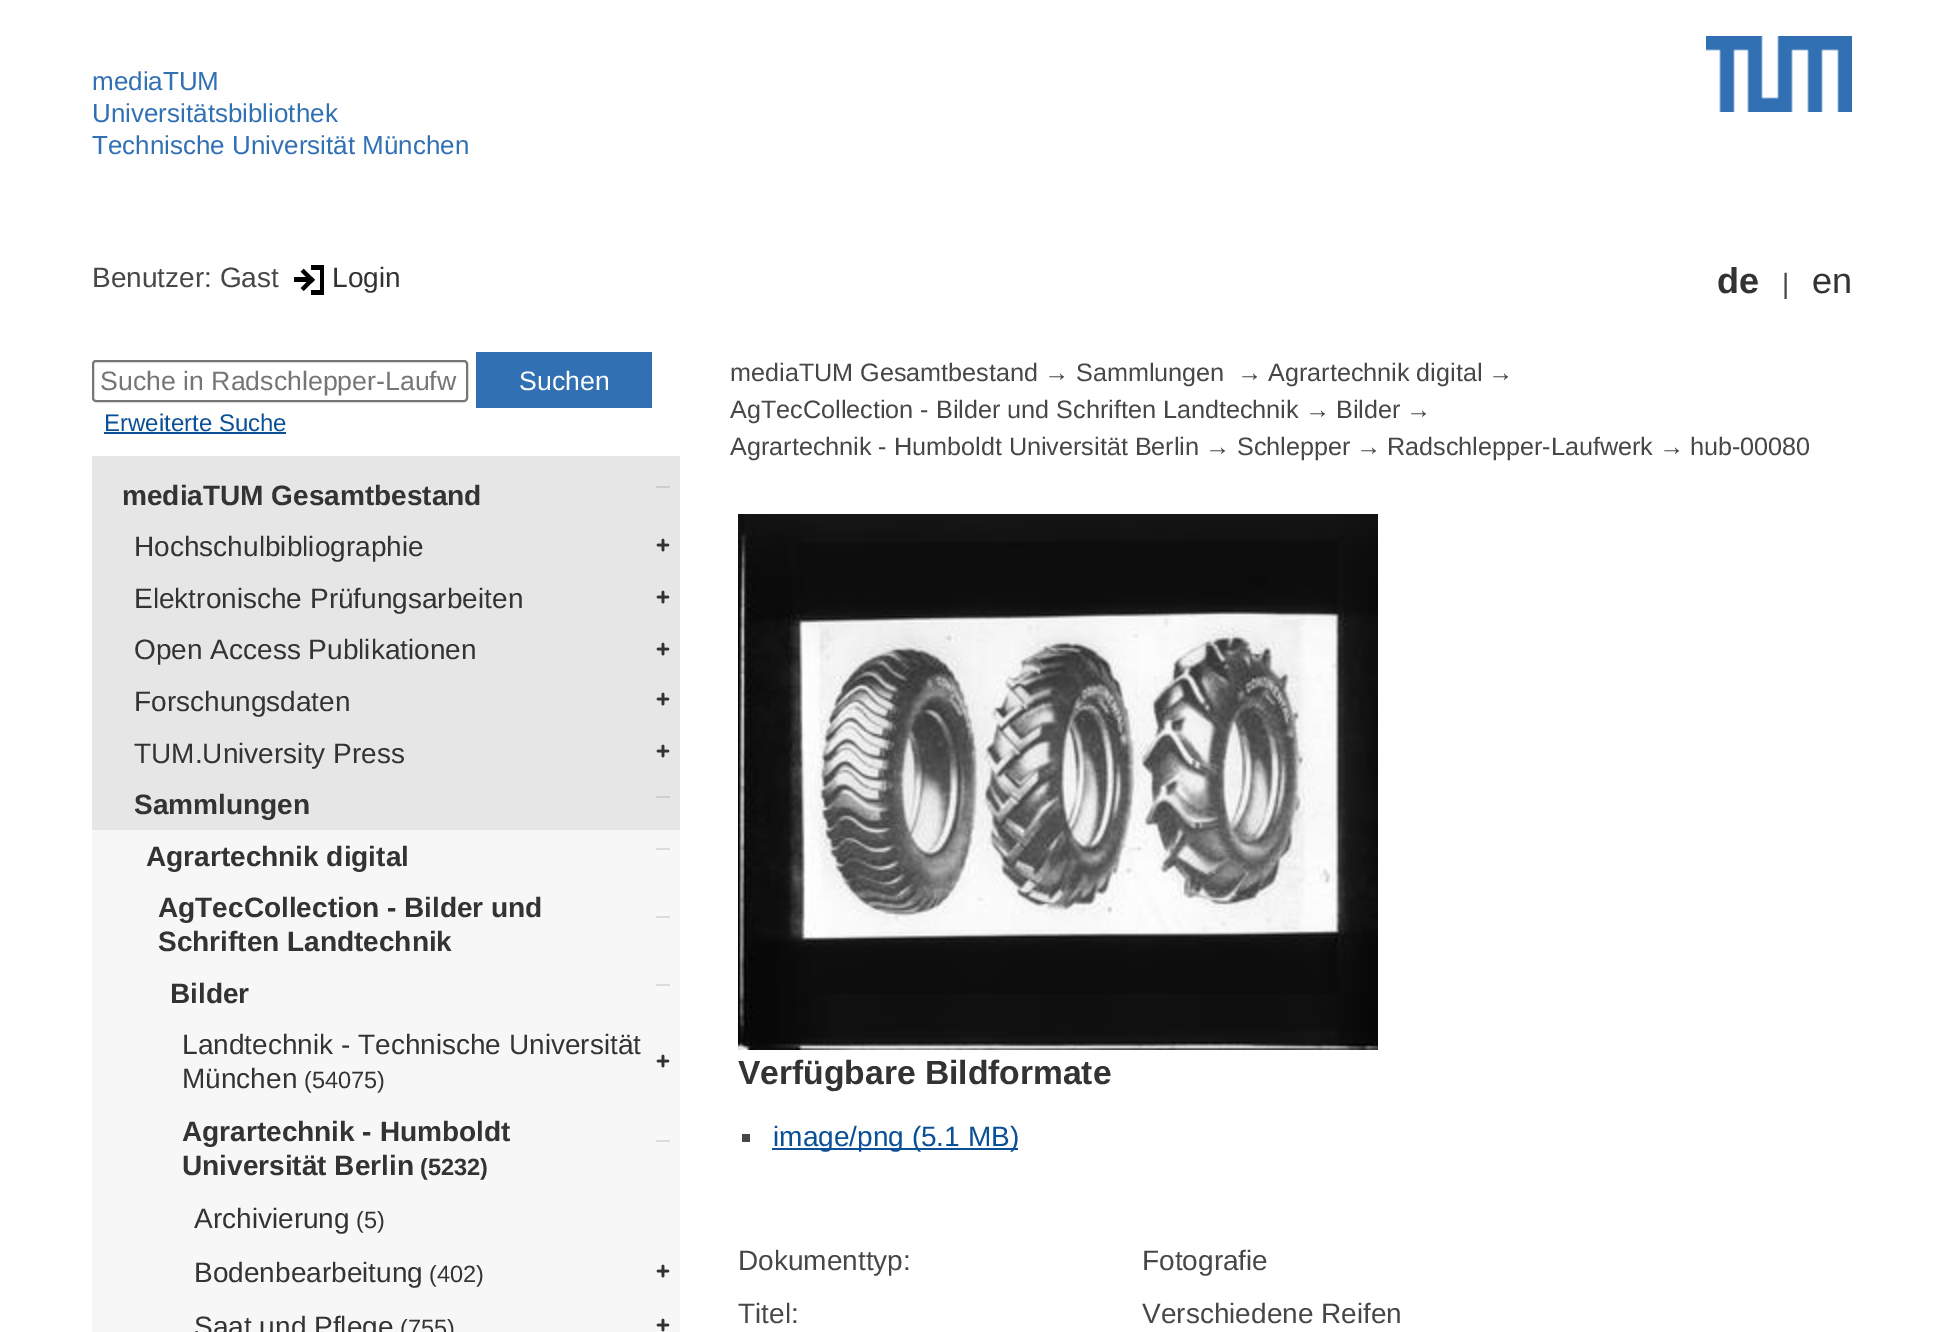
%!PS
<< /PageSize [1943 1332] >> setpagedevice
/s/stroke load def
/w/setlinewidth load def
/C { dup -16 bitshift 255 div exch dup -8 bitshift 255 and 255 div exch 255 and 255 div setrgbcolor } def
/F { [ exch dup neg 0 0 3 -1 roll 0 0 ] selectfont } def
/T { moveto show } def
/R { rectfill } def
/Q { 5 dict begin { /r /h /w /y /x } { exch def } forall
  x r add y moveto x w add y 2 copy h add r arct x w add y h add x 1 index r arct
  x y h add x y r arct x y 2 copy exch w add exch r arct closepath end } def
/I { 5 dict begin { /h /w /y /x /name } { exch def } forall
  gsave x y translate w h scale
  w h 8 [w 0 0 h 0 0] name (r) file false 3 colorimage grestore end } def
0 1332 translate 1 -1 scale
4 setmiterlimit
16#FFFFFF C
0 0 1943 1332 R
/LiberationSans-Regular 26 F
16#3070B3 C
(mediaTUM) 92 90 T
(Universitätsbibliothek) 92 122 T
(Technische Universität München) 92 154 T
(1.rgb) 1706 36 146 76 I
/LiberationSans-Regular 28 F
16#474747 C
(Benutzer: Gast) 92 287 T
(2.rgb) 294 265 30 30 I
16#333333 C
(Login) 332 287 T
/LiberationSans-Bold 36 F
(de) 1717 293 T
/LiberationSans-Regular 28 F
16#474747 C
(|) 1782 293 T
/LiberationSans-Regular 36 F
16#333333 C
(en) 1812 293 T
16#767676 C
2 w
93 361 374 40 3 Q s
/LiberationSans-Regular 26.7 F
16#757575 C
(Suche in Radschlepper-Laufw) 100 390 T
16#3070B3 C
476 352 176 56 R
16#FFFFFF C
(Suchen) 519 390 T
/LiberationSans-Regular 24 F
16#0A5096 C
(Erweiterte Suche) 104 431 T
104 432 182 2 R
16#E6E6E6 C
92 456 588 374 R
/LiberationSans-Bold 28 F
16#333333 C
(mediaTUM Gesamtbestand) 122 505 T
(3.rgb) 656 486 14 2 I
/LiberationSans-Regular 28 F
(Hochschulbibliographie) 134 556 T
(4.rgb) 656 538 14 14 I
(Elektronische Prüfungsarbeiten) 134 608 T
(4.rgb) 656 590 14 14 I
(Open Access Publikationen) 134 659 T
(4.rgb) 656 642 14 14 I
(Forschungsdaten) 134 711 T
(4.rgb) 656 692 14 14 I
(TUM.University Press) 134 763 T
(4.rgb) 656 744 14 14 I
/LiberationSans-Bold 28 F
(Sammlungen) 134 814 T
(3.rgb) 656 796 14 2 I
16#F7F7F7 C
92 830 588 502 R
16#333333 C
(Agrartechnik digital) 146 866 T
(5.rgb) 656 848 14 2 I
(AgTecCollection - Bilder und) 158 917 T
(5.rgb) 656 916 14 2 I
(Schriften Landtechnik) 158 951 T
(Bilder) 170 1003 T
(5.rgb) 656 984 14 2 I
/LiberationSans-Regular 28 F
(Landtechnik - Technische Universität) 182 1054 T
(6.rgb) 656 1054 14 14 I
(München) 182 1088 T
/LiberationSans-Regular 23.5 F
(\(54075\)) 304 1088 T
/LiberationSans-Bold 28 F
(Agrartechnik - Humboldt) 182 1141 T
(5.rgb) 656 1140 14 2 I
(Universität Berlin) 182 1175 T
/LiberationSans-Bold 23.5 F
(\(5232\)) 420 1175 T
/LiberationSans-Regular 28 F
(Archivierung) 194 1228 T
/LiberationSans-Regular 23.5 F
(\(5\)) 356 1228 T
/LiberationSans-Regular 28 F
(Bodenbearbeitung) 194 1282 T
/LiberationSans-Regular 23.5 F
(\(402\)) 429 1282 T
(6.rgb) 656 1264 14 14 I
/LiberationSans-Regular 28 F
(Saat und Pflege) 194 1336 T
/LiberationSans-Regular 23.5 F
(\(755\)) 400 1336 T
(6.rgb) 656 1318 14 14 I
/LiberationSans-Regular 25.2 F
16#474747 C
(mediaTUM Gesamtbestand) 730 381 T
(→) 1044 381 T
(Sammlungen) 1076 381 T
(→) 1237 381 T
(Agrartechnik digital) 1268 381 T
(→) 1488 381 T
(AgTecCollection - Bilder und Schriften Landtechnik) 730 418 T
(→) 1305 418 T
(Bilder) 1336 418 T
(→) 1406 418 T
(Agrartechnik - Humboldt Universität Berlin) 730 455 T
(→) 1205 455 T
(Schlepper) 1237 455 T
(→) 1356 455 T
(Radschlepper-Laufwerk) 1387 455 T
(→) 1659 455 T
(hub-00080) 1690 455 T
(7.rgb) 738 514 640 536 I
/LiberationSans-Bold 33.6 F
16#333333 C
(Verfügbare Bildformate) 738 1084 T
16#474747 C
742 1134 8 8 R
16#0A5096 C
772 1148 246 2 R
/LiberationSans-Regular 28 F
(image/png \(5.1 MB\)) 773 1146 T
16#474747 C
(Dokumenttyp:) 738 1270 T
(Fotografie) 1142 1270 T
(Titel:) 738 1323 T
(Verschiedene Reifen) 1142 1323 T
showpage
